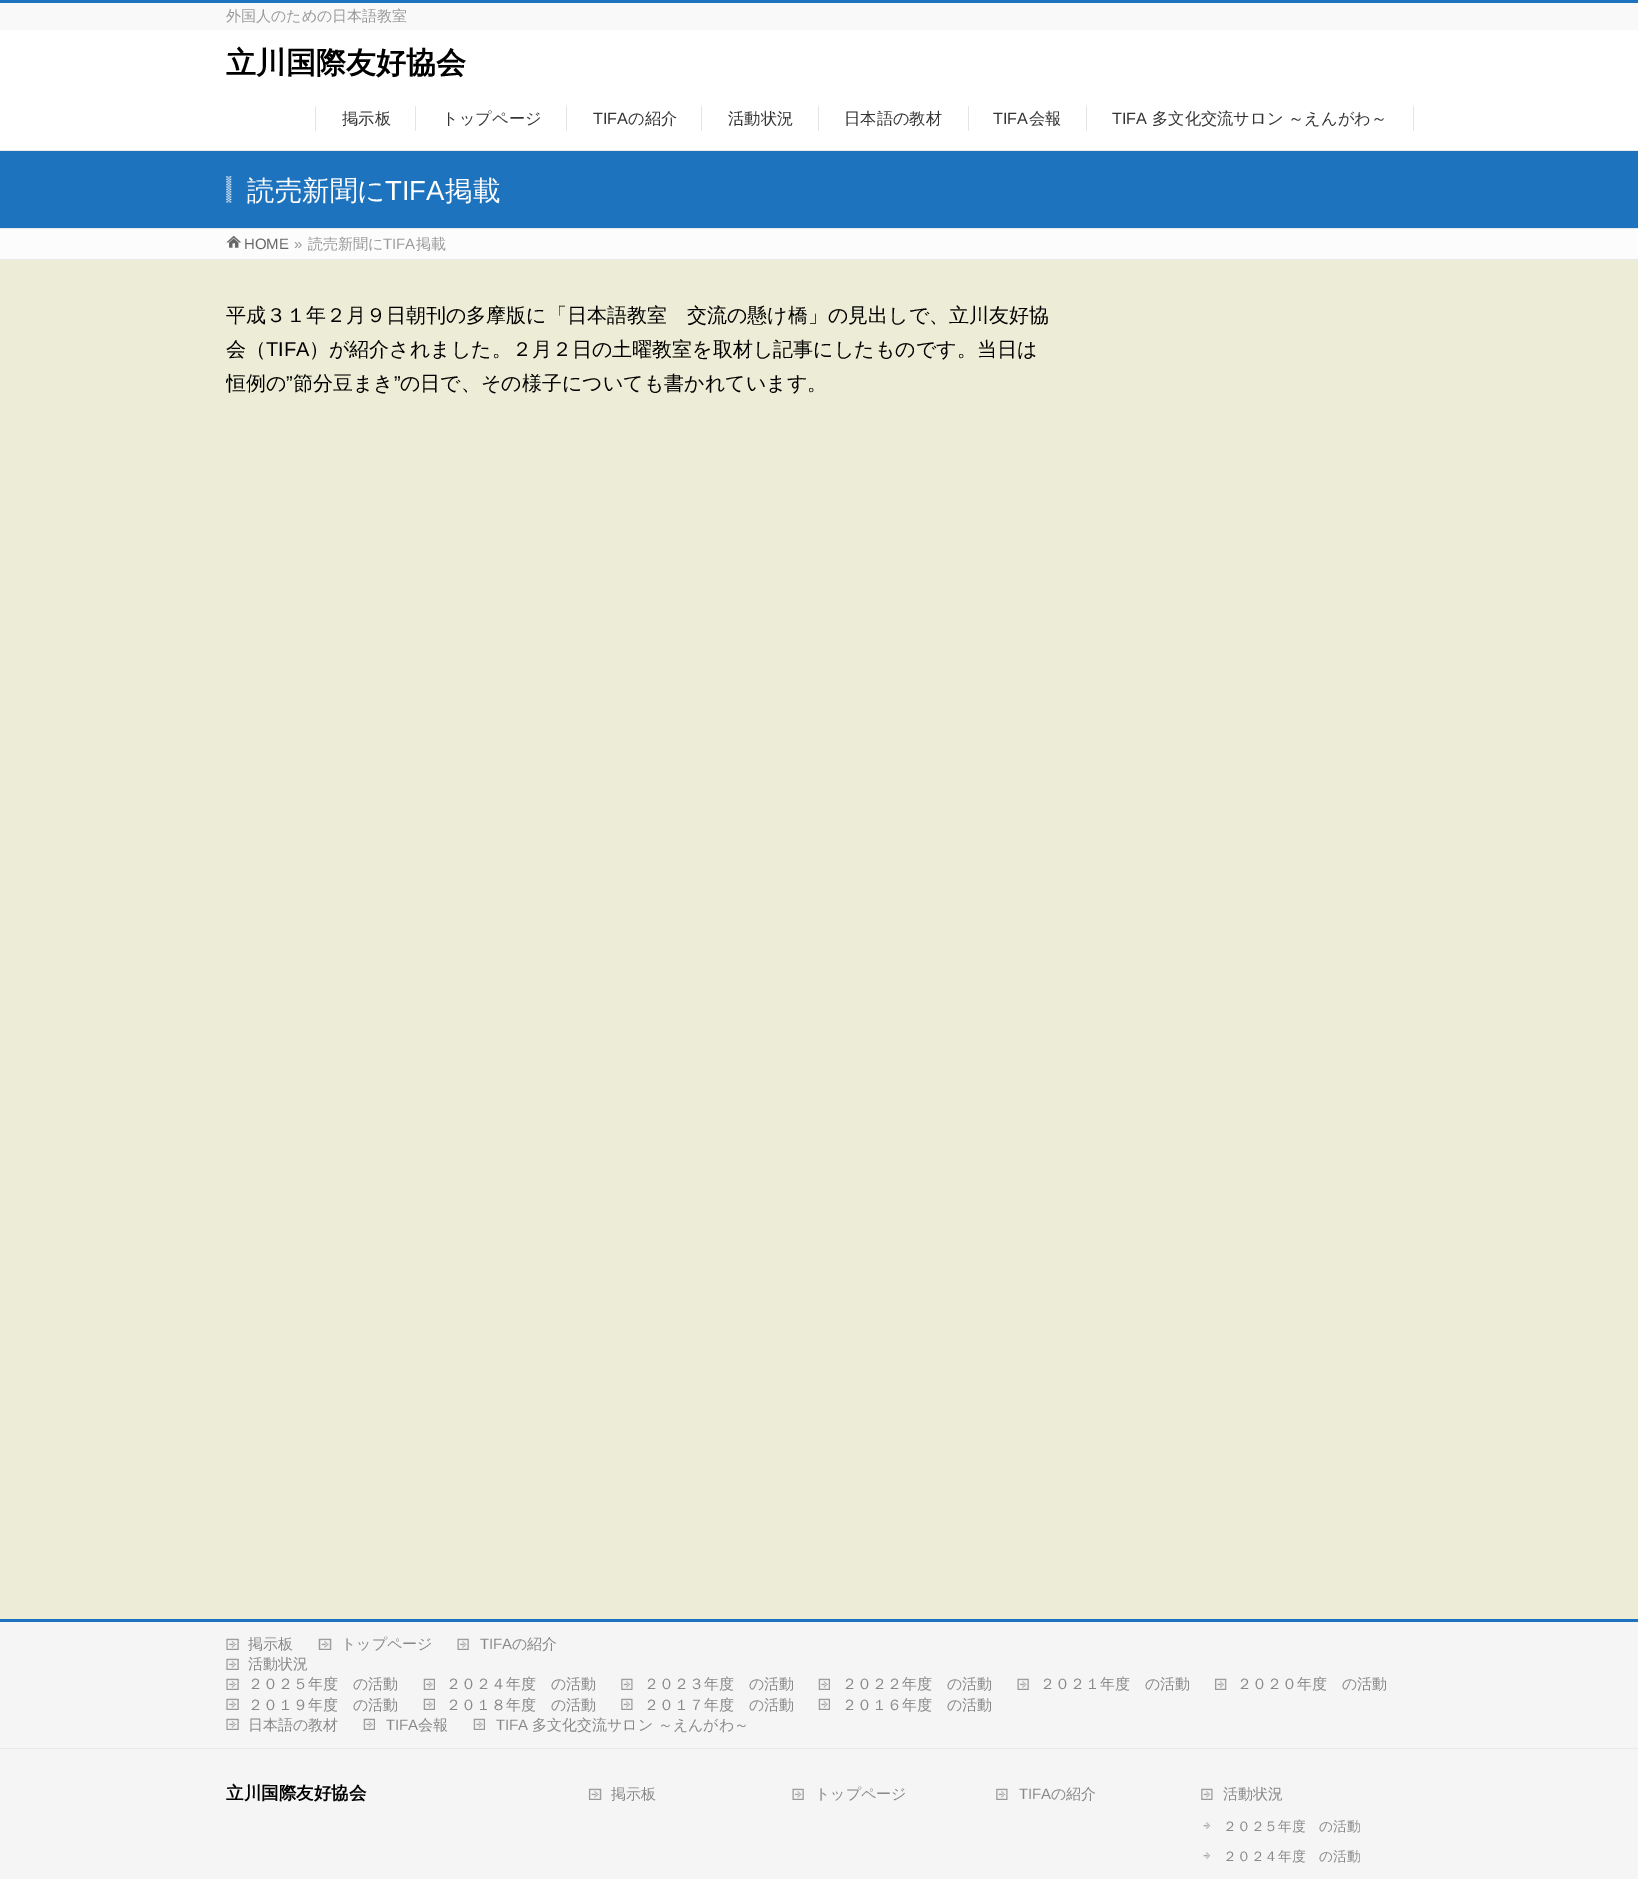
%!PS
<< /PageSize [1638 1879] >> setpagedevice
/q/gsave load def
/Q_/grestore load def
/C { dup -16 bitshift 255 div exch dup -8 bitshift 255 and 255 div exch 255 and 255 div setrgbcolor } def
/F { [ exch dup neg 0 0 3 -1 roll 0 0 ] selectfont } def
/T { moveto show } def
/R { rectfill } def
/I { 5 dict begin { /h /w /y /x /name } { exch def } forall
  gsave x y translate w h scale
  w h 8 [w 0 0 h 0 0] name (r) file false 3 colorimage grestore end } def
0 1879 translate 1 -1 scale
4 setmiterlimit
16#EDEDD7 C
0 0 1638 1879 R
16#F9F9F9 C
0 3 1638 27 R
16#1E73BE C
0 0 1638 3 R
/WenQuanYiZenHei-Medium 15 F
16#999999 C
(外国人のための日本語教室) 226 21 T
16#FFFFFF C
0 30 1638 120 R
/WenQuanYiZenHei-Bold 30 F
16#000000 C
(立川国際友好協会) 226 73 T
16#E5E5E5 C
415 106 1 25 R
315 106 1 25 R
/WenQuanYiZenHei-Medium 16.25 F
16#333333 C
(掲示板) 342 124 T
16#E5E5E5 C
566 106 1 25 R
16#333333 C
(トップページ) 442 124 T
16#E5E5E5 C
701 106 1 25 R
/LiberationSans-Regular 16.25 F
16#333333 C
(TIFA) 593 124 T
/WenQuanYiZenHei-Medium 16.25 F
(の紹介) 628 124 T
16#E5E5E5 C
818 106 1 25 R
16#333333 C
(活動状況) 728 124 T
16#E5E5E5 C
968 106 1 25 R
16#333333 C
(日本語の教材) 844 124 T
16#E5E5E5 C
1086 106 1 25 R
/LiberationSans-Regular 16.25 F
16#333333 C
(TIFA) 993 124 T
/WenQuanYiZenHei-Medium 16.25 F
(会報) 1029 124 T
16#E5E5E5 C
1413 106 1 25 R
/LiberationSans-Regular 16.25 F
16#333333 C
(TIFA) 1112 124 T
/WenQuanYiZenHei-Medium 16.25 F
(多文化交流サロン ～えんがわ～) 1152 124 T
16#1E73BE C
0 151 1638 77 R
16#E9E9E9 C
0 150 1638 1 R
0 228 1638 1 R
(1.rgb) 226 176 6 27 I
/WenQuanYiZenHei-Medium 27.5 F
16#FFFFFF C
(読売新聞に) 247 200 T
/LiberationSans-Regular 27.5 F
(TIFA) 385 200 T
/WenQuanYiZenHei-Medium 27.5 F
(掲載) 445 200 T
16#FCFCFC C
0 229 1638 30 R
(2.rgb) 226 235 16 13 I
/LiberationSans-Regular 15 F
16#666666 C
(HOME) 244 249 T
16#999999 C
(») 294 249 T
/WenQuanYiZenHei-Medium 15 F
(読売新聞に) 308 249 T
/LiberationSans-Regular 15 F
(TIFA) 383 249 T
/WenQuanYiZenHei-Medium 15 F
(掲載) 416 249 T
16#E9E9E9 C
0 259 1638 1 R
/WenQuanYiZenHei-Medium 20 F
16#000000 C
(平成３１年２月９日朝刊の多摩版に「日本語教室　交流の懸け橋」の見出しで、立川友好協) 226 322 T
(会（) 226 356 T
/LiberationSans-Regular 20 F
(TIFA) 266 356 T
/WenQuanYiZenHei-Medium 20 F
(）が紹介されました。２月２日の土曜教室を取材し記事にしたものです。当日は) 309 356 T
q
226 298 825 1252 rectclip
(恒例の) 226 390 T
Q_
/LiberationSans-Regular 20 F
(”) 286 390 T
/WenQuanYiZenHei-Medium 20 F
(節分豆まき) 293 390 T
/LiberationSans-Regular 20 F
(”) 394 390 T
/WenQuanYiZenHei-Medium 20 F
(の日で、その様子についても書かれています。) 400 390 T
16#F5F5F5 C
0 1622 1638 126 R
16#1E73BE C
0 1619 1638 3 R
16#E9E9E9 C
0 1748 1638 1 R
(3.rgb) 226 1638 13 12 I
/WenQuanYiZenHei-Medium 15 F
16#888888 C
(掲示板) 248 1649 T
(4.rgb) 318 1638 14 12 I
(トップページ) 341 1649 T
(5.rgb) 457 1638 12 12 I
/LiberationSans-Regular 15 F
(TIFA) 480 1649 T
/WenQuanYiZenHei-Medium 15 F
(の紹介) 512 1649 T
(3.rgb) 226 1658 13 12 I
(活動状況) 248 1669 T
(3.rgb) 226 1678 13 12 I
(２０２５年度　の活動) 248 1689 T
(6.rgb) 423 1678 12 12 I
(２０２４年度　の活動) 446 1689 T
(7.rgb) 621 1678 12 12 I
(２０２３年度　の活動) 644 1689 T
(8.rgb) 818 1678 12 12 I
(２０２２年度　の活動) 842 1689 T
(5.rgb) 1017 1678 12 12 I
(２０２１年度　の活動) 1040 1689 T
(9.rgb) 1215 1678 12 12 I
(２０２０年度　の活動) 1237 1689 T
(3.rgb) 226 1698 13 12 I
(２０１９年度　の活動) 248 1710 T
(6.rgb) 423 1698 12 12 I
(２０１８年度　の活動) 446 1710 T
(7.rgb) 621 1698 12 12 I
(２０１７年度　の活動) 644 1710 T
(8.rgb) 818 1698 12 12 I
(２０１６年度　の活動) 842 1710 T
(3.rgb) 226 1718 13 12 I
(日本語の教材) 248 1730 T
(8.rgb) 363 1718 12 12 I
/LiberationSans-Regular 15 F
(TIFA) 386 1730 T
/WenQuanYiZenHei-Medium 15 F
(会報) 418 1730 T
(6.rgb) 473 1718 12 12 I
/LiberationSans-Regular 15 F
(TIFA) 496 1730 T
/WenQuanYiZenHei-Medium 15 F
(多文化交流サロン ～えんがわ～) 532 1730 T
16#F5F5F5 C
0 1749 1638 130 R
/WenQuanYiZenHei-Bold 17.5 F
16#000000 C
(立川国際友好協会) 226 1799 T
(10.rgb) 588 1788 14 12 I
/WenQuanYiZenHei-Medium 15 F
16#888888 C
(掲示板) 611 1799 T
(5.rgb) 792 1788 12 12 I
(トップページ) 815 1799 T
(7.rgb) 996 1788 12 12 I
/LiberationSans-Regular 15 F
(TIFA) 1019 1799 T
/WenQuanYiZenHei-Medium 15 F
(の紹介) 1051 1799 T
(7.rgb) 1201 1788 12 12 I
(活動状況) 1223 1799 T
(11.rgb) 1203 1822 7 7 I
/WenQuanYiZenHei-Medium 13.75 F
(２０２５年度　の活動) 1223 1831 T
(11.rgb) 1203 1852 7 7 I
(２０２４年度　の活動) 1223 1861 T
showpage
